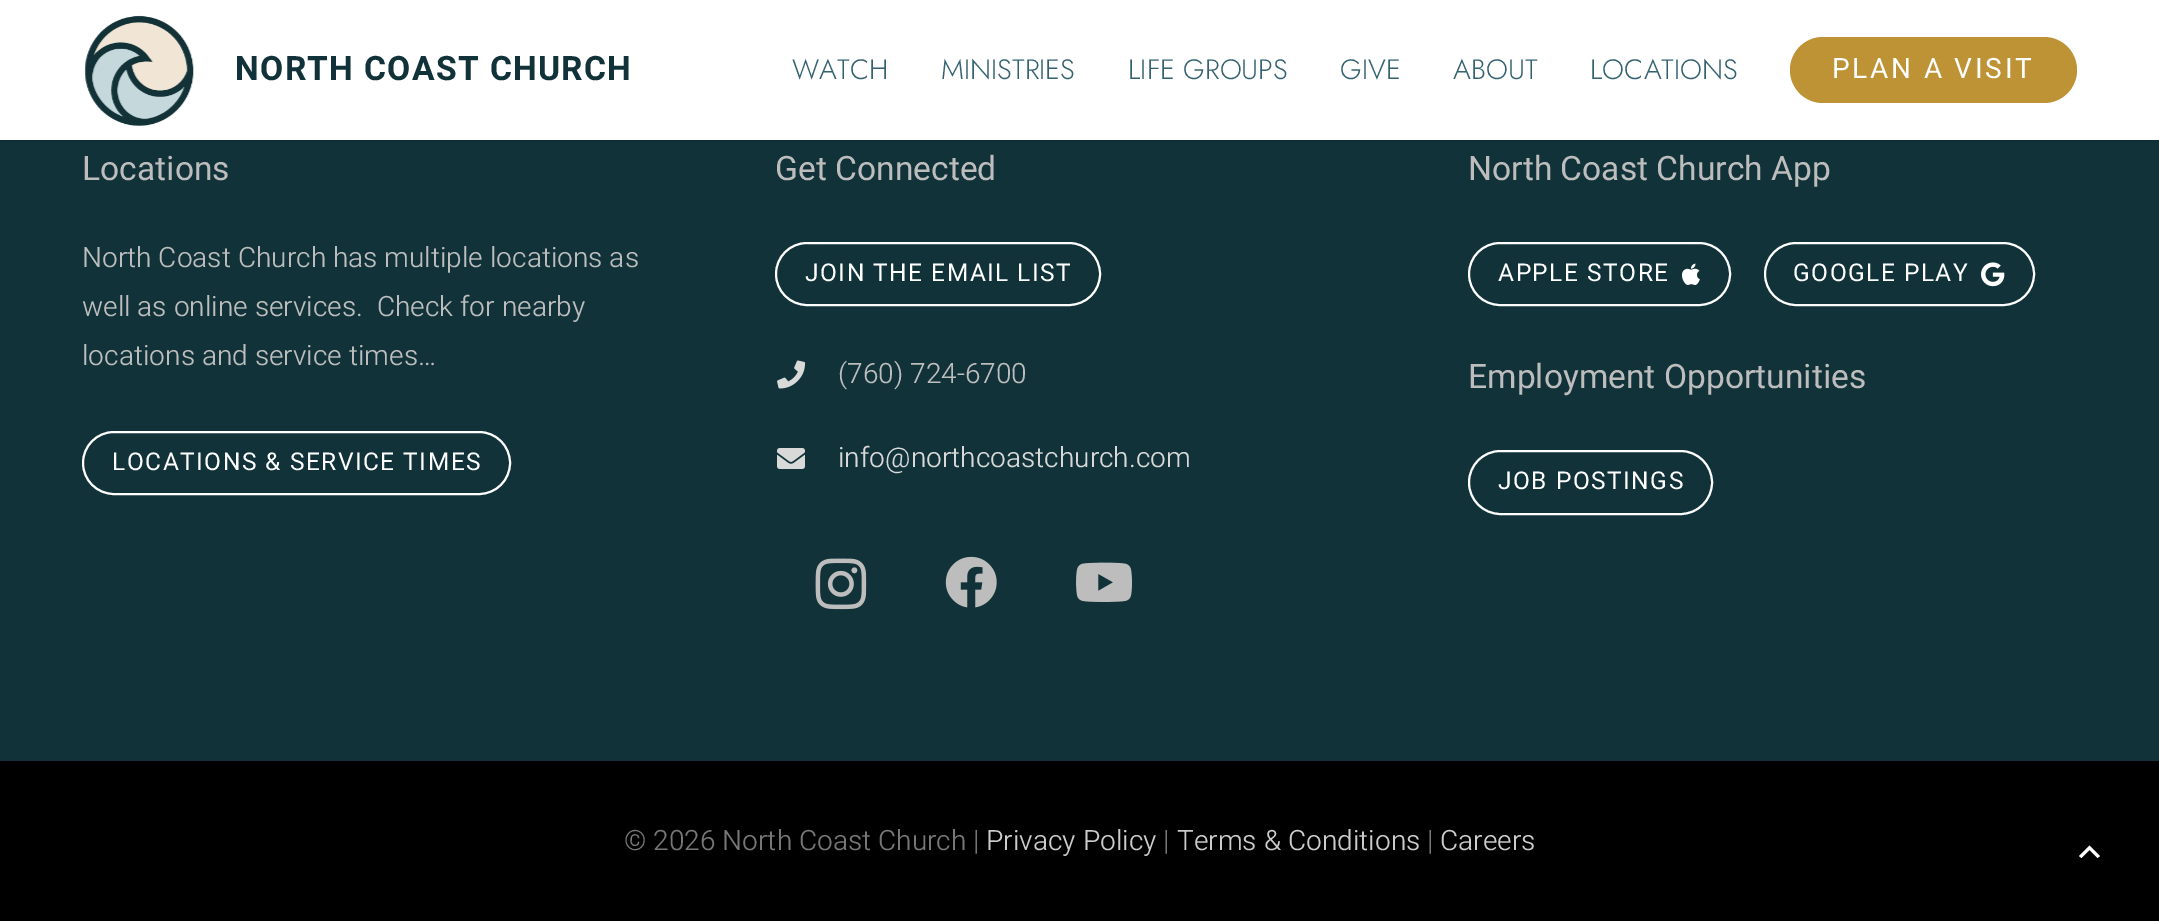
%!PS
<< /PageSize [2159 921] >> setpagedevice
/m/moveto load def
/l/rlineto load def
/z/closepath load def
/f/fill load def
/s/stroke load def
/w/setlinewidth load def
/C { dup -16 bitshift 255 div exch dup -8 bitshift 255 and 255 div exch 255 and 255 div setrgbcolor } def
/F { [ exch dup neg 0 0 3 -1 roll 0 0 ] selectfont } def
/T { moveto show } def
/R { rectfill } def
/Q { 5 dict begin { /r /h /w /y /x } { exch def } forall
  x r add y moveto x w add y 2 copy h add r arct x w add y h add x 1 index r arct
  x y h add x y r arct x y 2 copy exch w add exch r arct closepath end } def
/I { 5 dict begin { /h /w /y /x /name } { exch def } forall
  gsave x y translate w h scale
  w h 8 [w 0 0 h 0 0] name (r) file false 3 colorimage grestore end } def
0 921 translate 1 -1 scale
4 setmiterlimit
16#103238 C
0 0 2159 921 R
16#0F2E34 C
0 140 m 0 2 l 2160 0 l 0 -140 l 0 138 l z f
16#FFFFFF C
0 0 2159 140 R
(1.rgb) 84 15 110 111 I
/Heebo-Bold 33.6 F
16#113238 C
235 80 m 1.3 0 (NORTH COAST CHURCH) ashow
/Jost-Light 28 F
16#346271 C
(WATCH) 792 79 T
(MINISTRIES) 941 79 T
(LIFE GROUPS) 1128 79 T
(GIVE) 1340 79 T
(ABOUT) 1453 79 T
(LOCATIONS) 1590 79 T
16#BD9335 C
1790 37 287 66 33 Q f
/Heebo-Regular 28 F
16#FFFFFF C
1832 78 m 2.75 0 (PLAN A VISIT) ashow
/Heebo-Regular 33.6 F
16#BDBDBD C
(Locations) 82 180 T
/Heebo-Light 28 F
(North Coast Church has multiple locations as) 82 267 T
(well as online services.  Check for nearby) 82 316 T
(locations and service times…) 82 365 T
16#FFFFFF C
2 w
83 432 427 62 31 Q s
/Heebo-Regular 24.5 F
112 470 m 1.5 0 (LOCATIONS & SERVICE TIMES) ashow
/Heebo-Regular 33.6 F
16#BDBDBD C
(Get Connected) 775 180 T
16#FFFFFF C
776 243 324 62 31 Q s
/Heebo-Regular 24.5 F
805 281 m 1.5 0 (JOIN THE EMAIL LIST) ashow
(2.rgb) 777 360 29 29 I
/Heebo-Light 28 F
16#BDBDBD C
(\(760\) 724-6700) 838 383 T
(3.rgb) 777 448 28 21 I
16#D9D9D9 C
(info@northcoastchurch.com) 838 467 T
(4.rgb) 815 558 52 52 I
(5.rgb) 945 556 52 52 I
(6.rgb) 1076 562 57 40 I
/Heebo-Regular 33.6 F
16#BDBDBD C
(North Coast Church App) 1468 180 T
(7.rgb) 1681 263 19 22 I
16#FFFFFF C
1469 243 261 62 31 Q s
/Heebo-Regular 24.5 F
1498 281 m 1.5 0 (APPLE STORE) ashow
(8.rgb) 1981 262 24 25 I
1765 243 269 62 31 Q s
1793 281 m 1.5 0 (GOOGLE PLAY) ashow
/Heebo-Regular 33.6 F
16#BDBDBD C
(Employment Opportunities) 1468 388 T
16#FFFFFF C
1469 451 243 63 31.5 Q s
/Heebo-Regular 24.5 F
1498 489 m 1.5 0 (JOB POSTINGS) ashow
16#000000 C
0 761 2159 160 R
/Heebo-Light 28 F
16#777777 C
(© 2026 North Coast Church |) 624 850 T
16#CCCCCC C
(Privacy Policy) 986 850 T
16#777777 C
(|) 1163 850 T
16#CCCCCC C
(Terms & Conditions) 1177 850 T
16#777777 C
(|) 1427 850 T
16#CCCCCC C
(Careers) 1440 850 T
16#FFFFFF C
2081.5 858 m -2.5 -2 l 10.5 -10.5 l 10.5 10.5 l -2.5 2 l -8 -8 l z f
showpage
